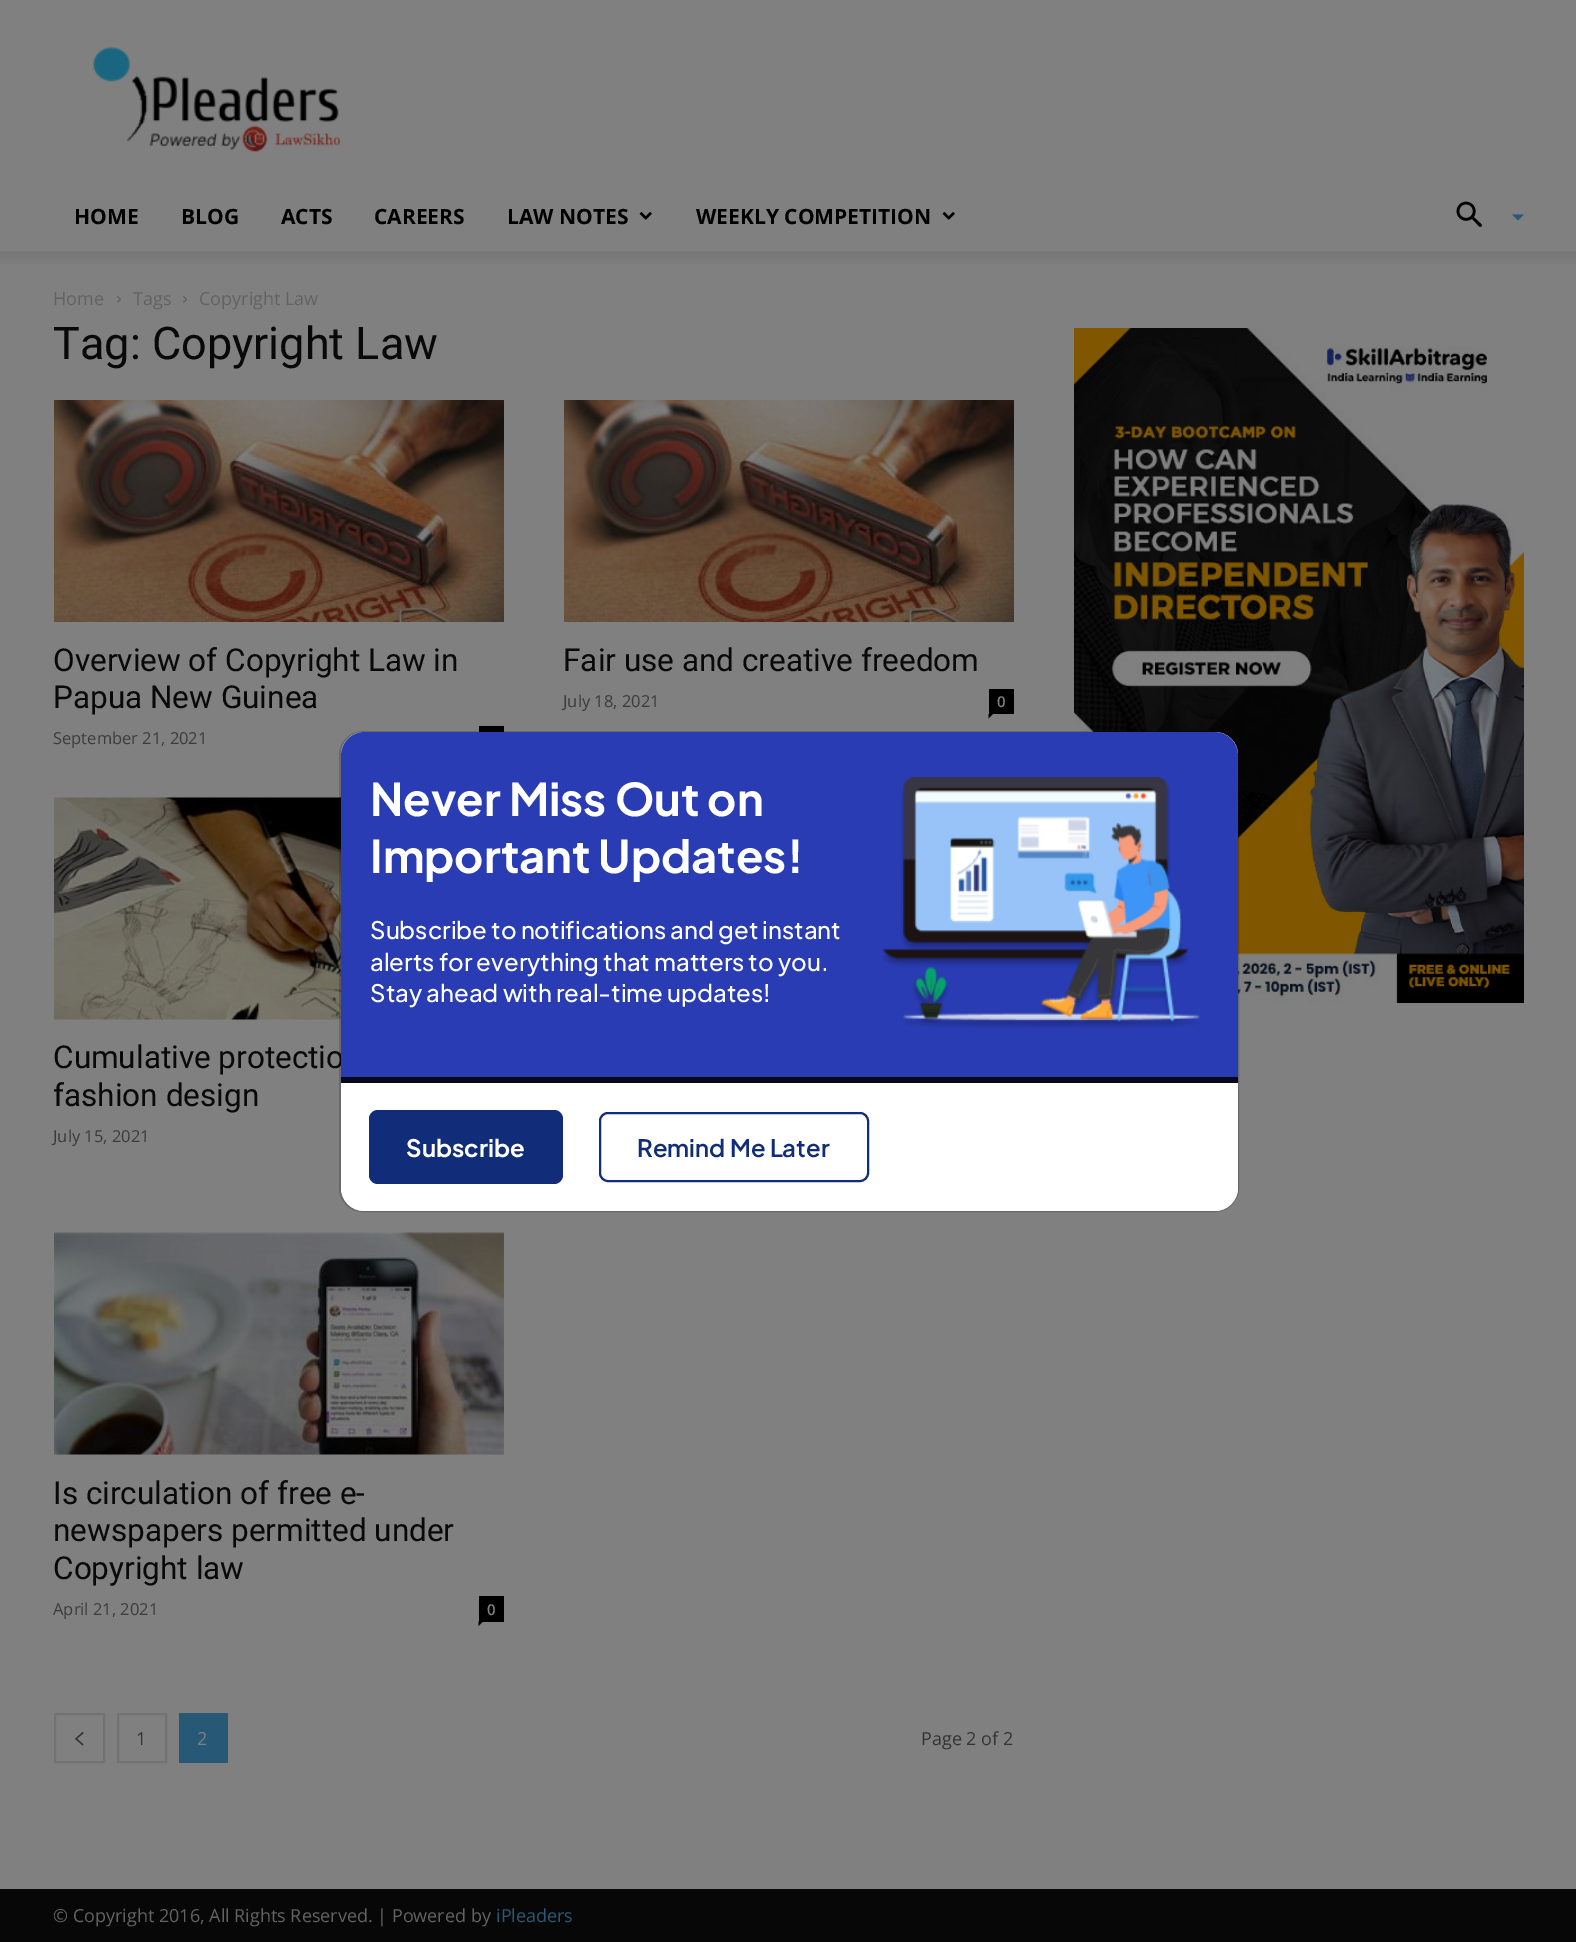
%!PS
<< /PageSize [1576 1942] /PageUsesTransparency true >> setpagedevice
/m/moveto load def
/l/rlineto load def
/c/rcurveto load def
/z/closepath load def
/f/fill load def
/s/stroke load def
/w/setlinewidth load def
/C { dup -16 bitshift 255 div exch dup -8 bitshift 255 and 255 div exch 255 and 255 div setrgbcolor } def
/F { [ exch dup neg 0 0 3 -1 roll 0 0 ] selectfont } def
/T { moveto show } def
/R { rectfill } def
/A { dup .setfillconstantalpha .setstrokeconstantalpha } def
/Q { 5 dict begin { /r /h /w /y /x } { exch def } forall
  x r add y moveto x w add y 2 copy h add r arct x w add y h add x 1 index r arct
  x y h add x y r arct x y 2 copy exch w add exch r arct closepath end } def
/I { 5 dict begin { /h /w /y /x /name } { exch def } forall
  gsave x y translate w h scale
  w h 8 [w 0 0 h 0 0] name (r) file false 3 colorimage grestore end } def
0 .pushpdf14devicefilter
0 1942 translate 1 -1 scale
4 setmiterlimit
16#808080 C
0 0 1576 1942 R
(1.rgb) 92 47 249 106 I
/OpenSans-Bold 21 F
16#000000 C
(HOME) 74 224 T
(BLOG) 181 224 T
(ACTS) 281 224 T
(CAREERS) 374 224 T
(LAW NOTES) 507 224 T
(2.rgb) 639 212 13 8 I
(WEEKLY COMPETITION) 696 224 T
(2.rgb) 942 212 13 8 I
(3.rgb) 1456 201 26 26 I
16#275976 C
1512 214.5 m 12 0 l -6 6 l z f
(4.rgb) 0 251 1576 13 I
/OpenSans-Regular 18 F
16#626262 C
(Home) 53 305 T
(5.rgb) 117 296 4 7 I
(Tags) 133 305 T
(5.rgb) 183 296 4 7 I
(Copyright Law) 199 305 T
/Roboto-Regular 45 F
16#090909 C
(Tag: Copyright Law) 53 359 T
(6.rgb) 54 400 450 222 I
/Roboto-Regular 31.5 F
(Overview of Copyright Law in) 53 671 T
(Papua New Guinea) 53 708 T
16#000000 C
479 726 25 6 R
/OpenSans-Regular 16.5 F
16#3B3B3B C
(September 21, 2021) 53 744 T
(6.rgb) 564 400 450 222 I
/Roboto-Regular 31.5 F
16#090909 C
(Fair use and creative freedom) 563 671 T
/OpenSans-Regular 16.5 F
16#3B3B3B C
(July 18, 2021) 563 707 T
16#000000 C
989 689 25 25 R
/OpenSans-SemiBold 15 F
16#808080 C
(0) 997 707 T
16#000000 C
988.5 714 m 4.5 0 l -4.5 4.5 l z f
(7.rgb) 54 797 287 223 I
/Roboto-Regular 31.5 F
16#090909 C
(Cumulative protectio) 53 1068 T
(fashion design) 53 1106 T
/OpenSans-Regular 16.5 F
16#3B3B3B C
(July 15, 2021) 53 1142 T
(8.rgb) 54 1232 450 223 I
/Roboto-Regular 31.5 F
16#090909 C
(Is circulation of free e-) 53 1504 T
(newspapers permitted under) 53 1541 T
(Copyright law) 53 1579 T
/OpenSans-Regular 16.5 F
16#3B3B3B C
(April 21, 2021) 53 1615 T
16#000000 C
479 1596 25 26 R
/OpenSans-SemiBold 15 F
16#808080 C
(0) 487 1615 T
16#000000 C
478.5 1621.5 m 4.5 0 l -4.5 4.5 l z f
16#727272 C
2 w
55 1714 49 48 rectstroke
(9.rgb) 75 1732 9 14 I
118 1714 48 48 rectstroke
/OpenSans-Regular 18 F
16#333333 C
(1) 136 1745 T
16#275976 C
179 1713 49 50 R
16#808080 C
(2) 197 1745 T
16#333333 C
(Page 2 of 2) 921 1745 T
(10.rgb) 1074 328 450 675 I
16#070707 C
0 1889 1576 53 R
16#626262 C
(© Copyright 2016, All Rights Reserved. | Powered by) 53 1922 T
16#275976 C
(iPleaders) 496 1922 T
16#FFFFFF C
341 732 897 479 23 Q f
0.18 A
16#000000 C
340 732 898 479 23 Q s
1 A
16#293CB3 C
365 732 m 849 0 l 13.5 0 24 10.5 24 24 c 0 321 l -897 0 l 0 -321 l 0 -13.5 10.5 -24 24 -24 c z f
/PlusJakartaSans-Bold 45 F
16#FFFFFF C
(Never Miss Out on) 370 816 T
(Important Updates!) 370 873 T
/PlusJakartaSans-Medium 24 F
(Subscribe to notifications and get instant) 370 939 T
(alerts for everything that matters to you.) 370 971 T
(Stay ahead with real-time updates!) 370 1002 T
(11.rgb) 882 777 318 252 I
341 1077 m 897 0 l 0 110 l 0 13.5 -10.5 24 -24 24 c -849 0 l -13.5 0 -24 -10.5 -24 -24 c z f
16#07091B C
341 1077 897 6 R
16#112C79 C
369 1110 194 74 9 Q f
/PlusJakartaSans-Bold 24 F
16#FFFFFF C
(Subscribe) 406 1157 T
16#112C79 C
600 1113 268 68 8 Q s
/PlusJakartaSans-SemiBold 24 F
(Remind Me Later) 637 1157 T
.poppdf14devicefilter showpage
